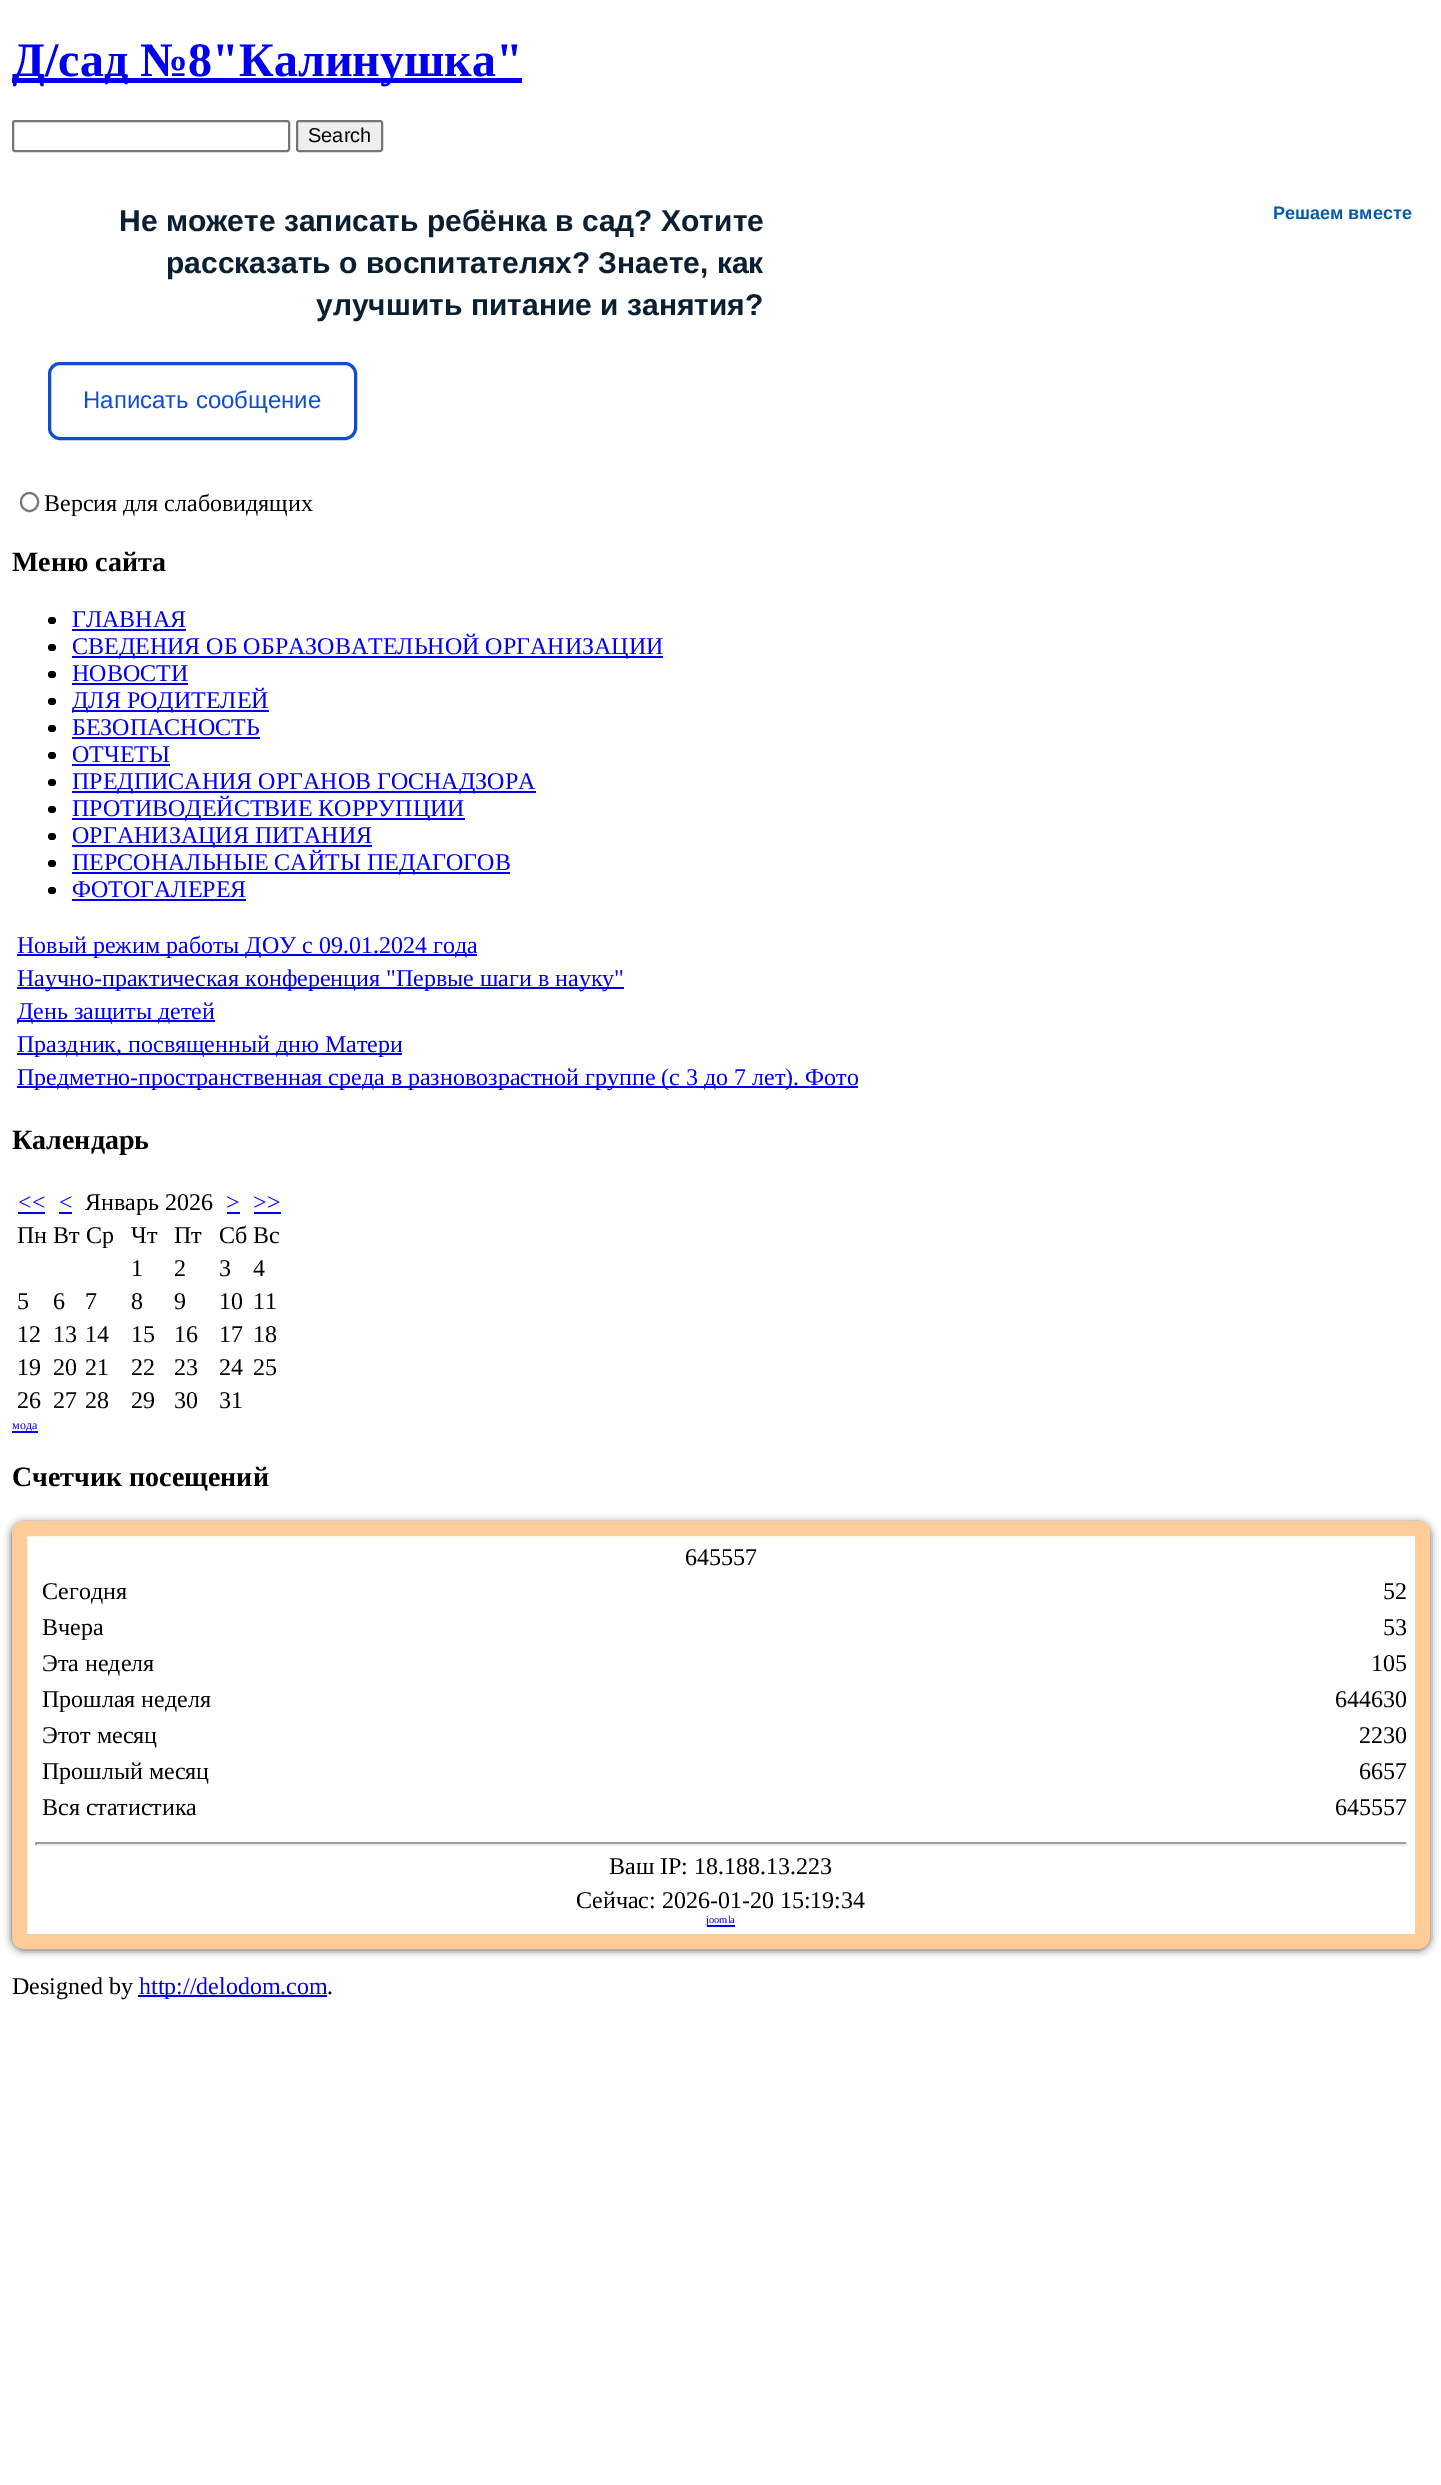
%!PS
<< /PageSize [1441 2485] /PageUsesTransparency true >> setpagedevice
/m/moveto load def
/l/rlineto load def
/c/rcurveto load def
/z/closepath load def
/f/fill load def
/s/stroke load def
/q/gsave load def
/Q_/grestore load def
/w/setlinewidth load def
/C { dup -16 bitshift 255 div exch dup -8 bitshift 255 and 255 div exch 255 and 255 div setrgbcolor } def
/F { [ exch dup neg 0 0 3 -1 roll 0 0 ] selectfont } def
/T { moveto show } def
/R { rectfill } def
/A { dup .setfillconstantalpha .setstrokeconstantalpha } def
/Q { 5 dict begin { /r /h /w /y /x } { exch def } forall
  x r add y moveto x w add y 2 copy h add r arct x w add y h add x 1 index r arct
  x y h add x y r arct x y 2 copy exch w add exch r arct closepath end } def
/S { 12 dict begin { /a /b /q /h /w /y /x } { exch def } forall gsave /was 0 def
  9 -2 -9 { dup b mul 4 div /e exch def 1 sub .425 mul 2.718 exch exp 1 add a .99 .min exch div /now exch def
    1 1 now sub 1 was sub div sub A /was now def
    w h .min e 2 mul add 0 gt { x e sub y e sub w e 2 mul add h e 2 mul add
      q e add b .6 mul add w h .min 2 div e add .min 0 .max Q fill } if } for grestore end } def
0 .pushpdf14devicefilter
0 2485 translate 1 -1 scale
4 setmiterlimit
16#FFFFFF C
0 0 1441 2485 R
16#0000EE C
12 78 510 5 R
/LiberationSerif-Bold 48 F
(Д/сад №8"Калинушка") 12 76 T
16#767676 C
2 w
13 121 276 30 2 Q s
16#EFEFEF C
297 121 85 30 2 Q q f Q_
16#767676 C
s
/LiberationSans-Regular 20 F
16#000000 C
(Search) 308 142 T
/LiberationSans-Bold 30 F
16#0B1F33 C
(Не можете записать ребёнка в сад? Хотите) 119 231 T
(рассказать о воспитателях? Знаете, как) 166 273 T
(улучшить питание и занятия?) 316 315 T
16#0D4CD3 C
3 w
49.5 363.5 306 75 10.5 Q s
/LiberationSans-Regular 24 F
(Написать сообщение) 83 408 T
/LiberationSans-Bold 18 F
16#005CA9 C
(Решаем вместе) 1273 219 T
16#767676 C
2 w
21 493 17 18 8.5 Q s
/LiberationSerif-Regular 24 F
16#000000 C
(Версия для слабовидящих) 44 511 T
/LiberationSerif-Bold 28 F
(Меню сайта) 12 571 T
48 617 8 7 3.5 Q f
/LiberationSerif-Regular 24 F
16#0000EE C
(ГЛАВНАЯ) 72 627 T
72 629 114 2 R
16#000000 C
48 644 8 7 3.5 Q f
16#0000EE C
72 656 591 2 R
(СВЕДЕНИЯ ОБ ОБРАЗОВАТЕЛЬНОЙ ОРГАНИЗАЦИИ) 72 654 T
16#000000 C
48 671 8 7 3.5 Q f
16#0000EE C
(НОВОСТИ) 72 681 T
72 683 116 2 R
16#000000 C
48 698 8 7 3.5 Q f
16#0000EE C
72 710 197 2 R
(ДЛЯ РОДИТЕЛЕЙ) 72 708 T
16#000000 C
48 725 8 7 3.5 Q f
16#0000EE C
(БЕЗОПАСНОСТЬ) 72 735 T
72 737 188 2 R
16#000000 C
48 752 8 7 3.5 Q f
16#0000EE C
(ОТЧЕТЫ) 72 762 T
72 764 98 2 R
16#000000 C
48 779 8 7 3.5 Q f
16#0000EE C
72 791 464 2 R
(ПРЕДПИСАНИЯ ОРГАНОВ ГОСНАДЗОРА) 72 789 T
16#000000 C
48 806 8 7 3.5 Q f
16#0000EE C
72 818 393 2 R
(ПРОТИВОДЕЙСТВИЕ КОРРУПЦИИ) 72 816 T
16#000000 C
48 833 8 7 3.5 Q f
16#0000EE C
72 845 300 2 R
(ОРГАНИЗАЦИЯ ПИТАНИЯ) 72 843 T
16#000000 C
48 860 8 7 3.5 Q f
16#0000EE C
72 872 438 2 R
(ПЕРСОНАЛЬНЫЕ САЙТЫ ПЕДАГОГОВ) 72 870 T
16#000000 C
48 887 8 7 3.5 Q f
16#0000EE C
(ФОТОГАЛЕРЕЯ) 72 897 T
72 899 174 2 R
17 954 460 2 R
(Новый режим работы ДОУ с 09.01.2024 года) 17 953 T
17 987 607 2 R
(Научно-практическая конференция "Первые шаги в науку") 17 986 T
17 1020 198 2 R
(День защиты детей) 17 1019 T
17 1053 385 2 R
(Праздник, посвященный дню Матери) 17 1052 T
17 1086 841 2 R
(Предметно-пространственная среда в разновозрастной группе \(с 3 до 7 лет\). Фото) 17 1085 T
/LiberationSerif-Bold 28 F
16#000000 C
(Календарь) 12 1149 T
/LiberationSerif-Regular 24 F
16#0000EE C
(<<) 18 1210 T
18 1212 27 2 R
(<) 59 1210 T
59 1212 13 2 R
16#000000 C
(Январь 2026) 85 1210 T
16#0000EE C
(>) 226 1210 T
227 1212 13 2 R
(>>) 253 1210 T
254 1212 27 2 R
16#000000 C
(Пн Вт Ср) 17 1243 T
(Чт) 131 1243 T
(Пт) 174 1243 T
(Сб Вс) 219 1243 T
(1) 131 1276 T
(2) 174 1276 T
(3) 219 1276 T
(4) 253 1276 T
(5) 17 1309 T
(6) 53 1309 T
(7) 85 1309 T
(8) 131 1309 T
(9) 174 1309 T
(10) 219 1309 T
(11) 253 1309 T
(12) 17 1342 T
(13) 53 1342 T
(14) 85 1342 T
(15) 131 1342 T
(16) 174 1342 T
(17) 219 1342 T
(18) 253 1342 T
(19) 17 1375 T
(20) 53 1375 T
(21) 85 1375 T
(22) 131 1375 T
(23) 174 1375 T
(24) 219 1375 T
(25) 253 1375 T
(26) 17 1408 T
(27) 53 1408 T
(28) 85 1408 T
(29) 131 1408 T
(30) 174 1408 T
(31) 219 1408 T
16#0000EE C
12 1431 26 2 R
/LiberationSerif-Regular 12 F
(мода) 12 1429 T
/LiberationSerif-Bold 28 F
16#000000 C
(Счетчик посещений) 12 1486 T
q
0 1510 m 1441 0 l 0 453 l -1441 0 l z 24 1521 m 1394 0 l 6.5 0 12 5.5 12 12 c 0 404 l 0 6.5 -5.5 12 -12 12 c -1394 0 l -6.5 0 -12 -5.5 -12 -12 c 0 -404 l 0 -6.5 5.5 -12 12 -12 c z eoclip newpath
16#4A4A4A C
12 1523 1418 427 12 4 1 S
Q_
16#FFCC99 C
15 w
19.5 1528.5 1403 413 4.5 Q s
/LiberationSerif-Regular 24 F
16#000000 C
(645557) 685 1565 T
(Сегодня) 42 1599 T
(Вчера) 42 1635 T
(Эта неделя) 42 1671 T
(Прошлая неделя) 42 1707 T
(Этот месяц) 42 1743 T
(Прошлый месяц) 42 1779 T
(Вся статистика) 42 1815 T
(52) 1383 1599 T
(53) 1383 1635 T
(105) 1371 1671 T
(644630) 1335 1707 T
(2230) 1359 1743 T
(6657) 1359 1779 T
(645557) 1335 1815 T
16#9F9F9F C
35 1842 1372 2 R
16#EEEEEE C
1406 1842 2 3 R
35 1844 1372 2 R
16#9F9F9F C
35 1842 2 3 R
16#000000 C
(Ваш IP: 18.188.13.223) 609 1874 T
(Сейчас: 2026-01-20 15:19:34) 576 1908 T
16#0000EE C
707 1925 28 2 R
/LiberationSerif-Regular 10.5 F
(joomla) 706 1923 T
/LiberationSerif-Regular 24 F
16#000000 C
(Designed by) 12 1994 T
16#0000EE C
138 1995 189 2 R
(http://delodom.com) 139 1994 T
16#000000 C
(.) 327 1994 T
.poppdf14devicefilter showpage
